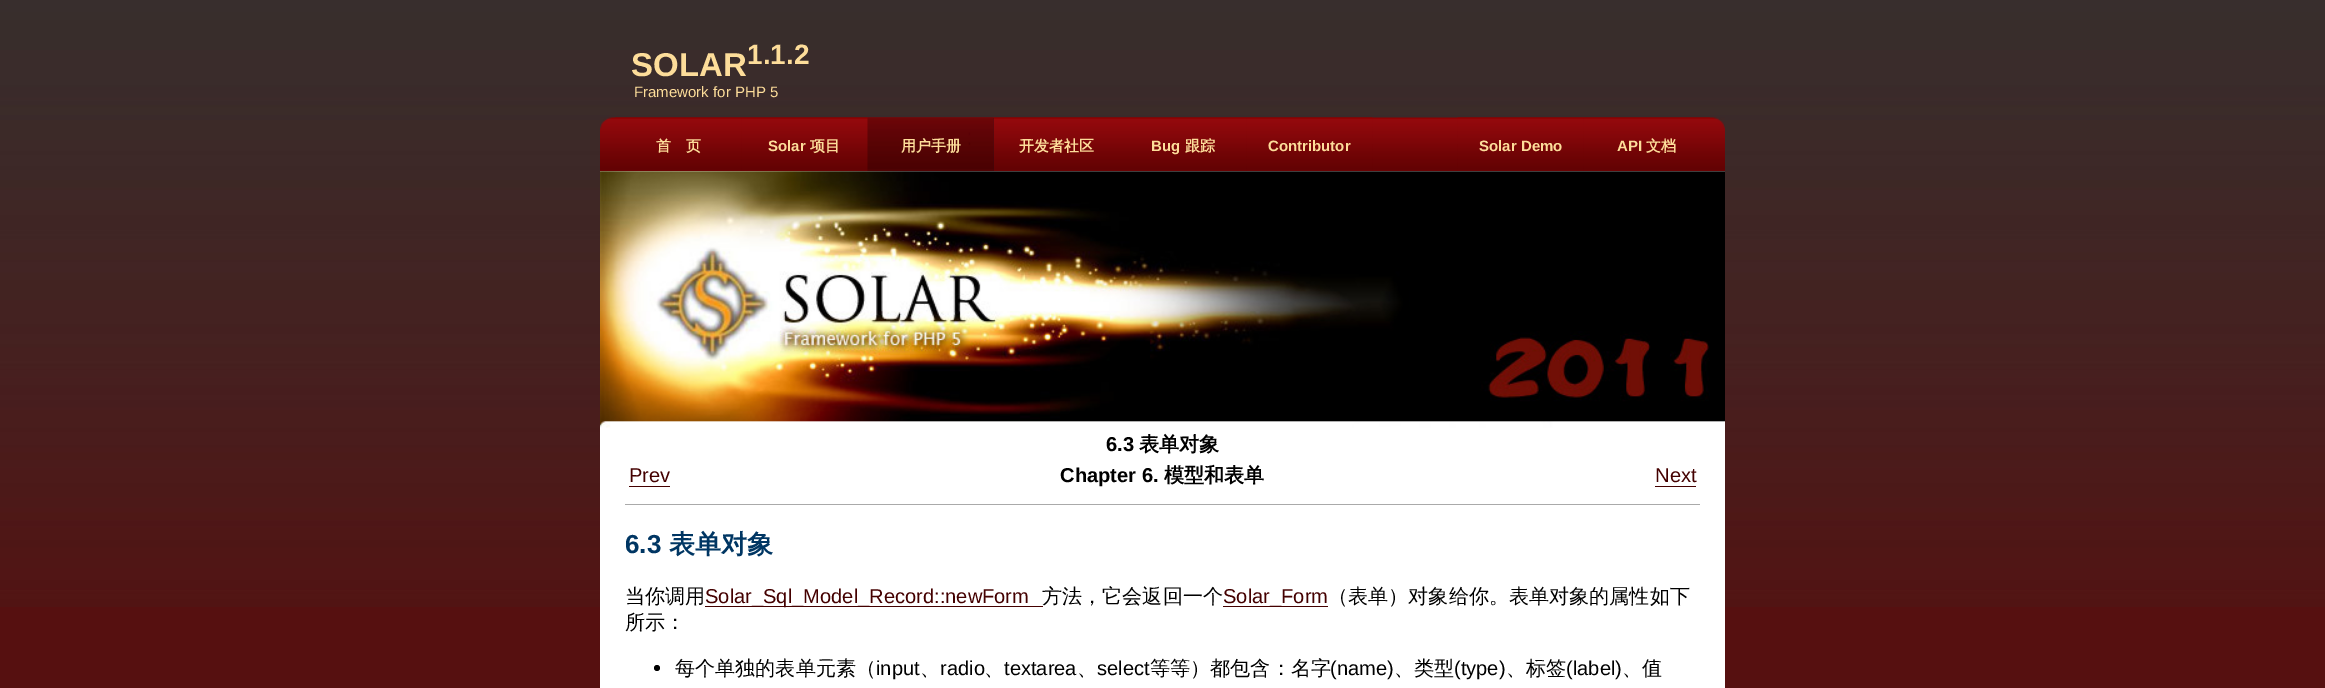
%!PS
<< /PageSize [2325 688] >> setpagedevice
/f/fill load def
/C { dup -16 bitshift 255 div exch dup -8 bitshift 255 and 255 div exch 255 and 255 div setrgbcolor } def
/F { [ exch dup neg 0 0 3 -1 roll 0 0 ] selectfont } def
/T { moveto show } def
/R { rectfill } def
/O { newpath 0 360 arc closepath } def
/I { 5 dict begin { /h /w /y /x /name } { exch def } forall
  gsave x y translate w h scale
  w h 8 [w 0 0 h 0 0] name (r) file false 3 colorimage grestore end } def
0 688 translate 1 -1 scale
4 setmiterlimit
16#561010 C
0 0 2325 688 R
(1.rgb) 0 0 2325 607 I
/LiberationSans-Bold 33 F
16#FDDD9A C
(SOLAR) 631 76 T
/LiberationSans-Bold 28 F
(1.1.2) 747 64 T
/LiberationSans-Regular 15 F
(Framework for PHP 5) 634 97 T
(2.rgb) 600 117 1125 54 I
(3.rgb) 615 117 127 54 I
/WenQuanYiZenHei-Bold 15 F
(首　页) 656 151 T
(4.rgb) 741 117 127 54 I
/LiberationSans-Bold 15 F
(Solar) 768 151 T
/WenQuanYiZenHei-Bold 15 F
(项目) 810 151 T
(5.rgb) 867 117 127 54 I
(用户手册) 901 151 T
(6.rgb) 993 117 127 54 I
(开发者社区) 1019 151 T
(3.rgb) 1120 117 127 54 I
/LiberationSans-Bold 15 F
(Bug) 1151 151 T
/WenQuanYiZenHei-Bold 15 F
(跟踪) 1185 151 T
(4.rgb) 1246 117 127 54 I
/LiberationSans-Bold 15 F
(Contributor) 1268 151 T
(8.rgb) 1583 117 127 54 I
(7.rgb) 1457 117 127 54 I
(Solar Demo) 1479 151 T
(API) 1617 151 T
/WenQuanYiZenHei-Bold 15 F
(文档) 1646 151 T
16#FFFFFF C
600 171 1125 517 R
(9.rgb) 600 171 1125 257 I
16#AAAAAA C
625 504 1075 1 R
/LiberationSans-Bold 20.1 F
16#000000 C
(6.3) 1106 451 T
/WenQuanYiZenHei-Bold 20.1 F
(表单对象) 1139 451 T
/LiberationSans-Regular 20.1 F
16#440000 C
(Prev) 629 482 T
629 486 41 1 R
/LiberationSans-Bold 20.1 F
16#000000 C
(Chapter 6.) 1060 482 T
/WenQuanYiZenHei-Bold 20.1 F
(模型和表单) 1164 482 T
/LiberationSans-Regular 20.1 F
16#440000 C
(Next) 1655 482 T
1655 486 41 1 R
/LiberationSans-Bold 26 F
16#003663 C
(6.3) 625 553 T
/WenQuanYiZenHei-Bold 26 F
(表单对象) 669 553 T
/WenQuanYiZenHei-Medium 20.1 F
16#000000 C
(当你调用) 625 603 T
16#440000 C
705 606 338 1 R
/LiberationSans-Regular 20.1 F
(Solar_Sql_Model_Record::newForm) 705 603 T
/WenQuanYiZenHei-Medium 20.1 F
16#000000 C
(方法，它会返回一个) 1042 603 T
16#440000 C
1223 606 105 1 R
/LiberationSans-Regular 20.1 F
(Solar_Form) 1223 603 T
/WenQuanYiZenHei-Medium 20.1 F
16#000000 C
(（表单）对象给你。表单对象的属性如下) 1328 603 T
(所示：) 625 629 T
657 668 3 O f
(每个单独的表单元素（) 675 675 T
/LiberationSans-Regular 20.1 F
(input) 876 675 T
/WenQuanYiZenHei-Medium 20.1 F
(、) 920 675 T
/LiberationSans-Regular 20.1 F
(radio) 940 675 T
/WenQuanYiZenHei-Medium 20.1 F
(、) 984 675 T
/LiberationSans-Regular 20.1 F
(textarea) 1004 675 T
/WenQuanYiZenHei-Medium 20.1 F
(、) 1077 675 T
/LiberationSans-Regular 20.1 F
(select) 1097 675 T
/WenQuanYiZenHei-Medium 20.1 F
(等等）都包含：名字) 1150 675 T
/LiberationSans-Regular 20.1 F
(\(name\)) 1330 675 T
/WenQuanYiZenHei-Medium 20.1 F
(、类型) 1394 675 T
/LiberationSans-Regular 20.1 F
(\(type\)) 1454 675 T
/WenQuanYiZenHei-Medium 20.1 F
(、标签) 1506 675 T
/LiberationSans-Regular 20.1 F
(\(label\)) 1566 675 T
/WenQuanYiZenHei-Medium 20.1 F
(、值) 1622 675 T
showpage
